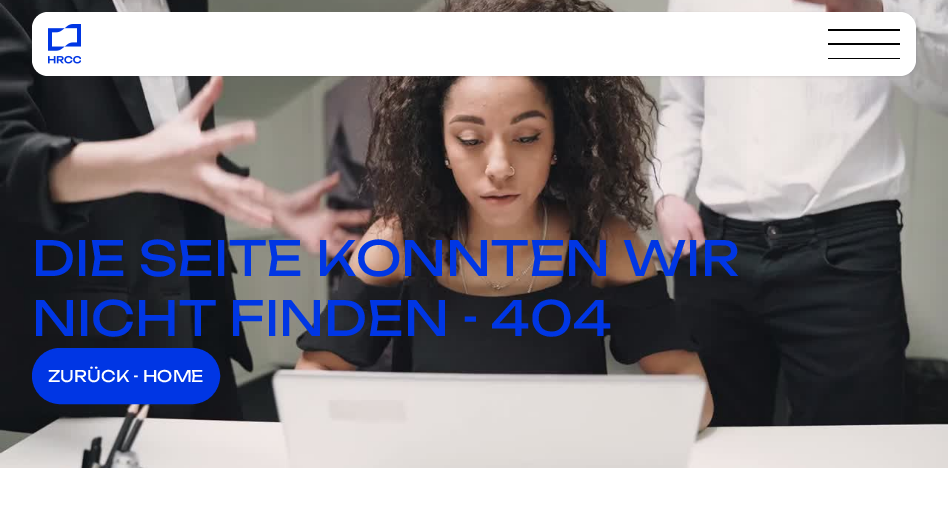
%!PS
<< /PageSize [948 520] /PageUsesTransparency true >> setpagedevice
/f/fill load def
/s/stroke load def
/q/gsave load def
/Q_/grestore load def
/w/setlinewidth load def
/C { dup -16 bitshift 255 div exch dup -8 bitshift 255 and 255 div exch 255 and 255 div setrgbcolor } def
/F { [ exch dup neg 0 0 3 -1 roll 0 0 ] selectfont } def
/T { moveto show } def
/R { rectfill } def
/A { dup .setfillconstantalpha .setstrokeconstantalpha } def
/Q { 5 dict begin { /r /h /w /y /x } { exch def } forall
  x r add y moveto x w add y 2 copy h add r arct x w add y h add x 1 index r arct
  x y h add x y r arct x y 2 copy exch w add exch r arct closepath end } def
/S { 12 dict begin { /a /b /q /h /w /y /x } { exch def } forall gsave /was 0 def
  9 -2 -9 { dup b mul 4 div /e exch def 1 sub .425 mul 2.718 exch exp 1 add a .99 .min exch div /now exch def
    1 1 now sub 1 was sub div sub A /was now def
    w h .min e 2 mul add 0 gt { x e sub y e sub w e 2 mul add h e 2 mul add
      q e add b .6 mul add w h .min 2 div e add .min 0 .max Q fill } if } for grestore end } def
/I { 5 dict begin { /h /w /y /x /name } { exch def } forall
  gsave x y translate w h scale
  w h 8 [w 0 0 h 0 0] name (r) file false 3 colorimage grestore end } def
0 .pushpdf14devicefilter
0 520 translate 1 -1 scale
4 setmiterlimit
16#FFFFFF C
0 0 948 520 R
(2.rgb) 0 0 948 468 I
16#101828 C
32 13 884 64 16 1 .1 S
16#FFFFFF C
32 12 884 64 16 Q f
(1.rgb) 48 24 33 40 I
16#000000 C
828 29 72 2 R
828 43 72 2 R
828 58 72 1 R
/Unbounded-Regular 48 F
16#0036E4 C
(DIE SEITE KONNTEN WIR) 32 276 T
(NICHT FINDEN - 404) 32 336 T
33 349 186 54 27 Q q f Q_
2 w
s
/Unbounded-Regular 16 F
16#FFFFFF C
(ZURÜCK - HOME) 48 382 T
.poppdf14devicefilter showpage
